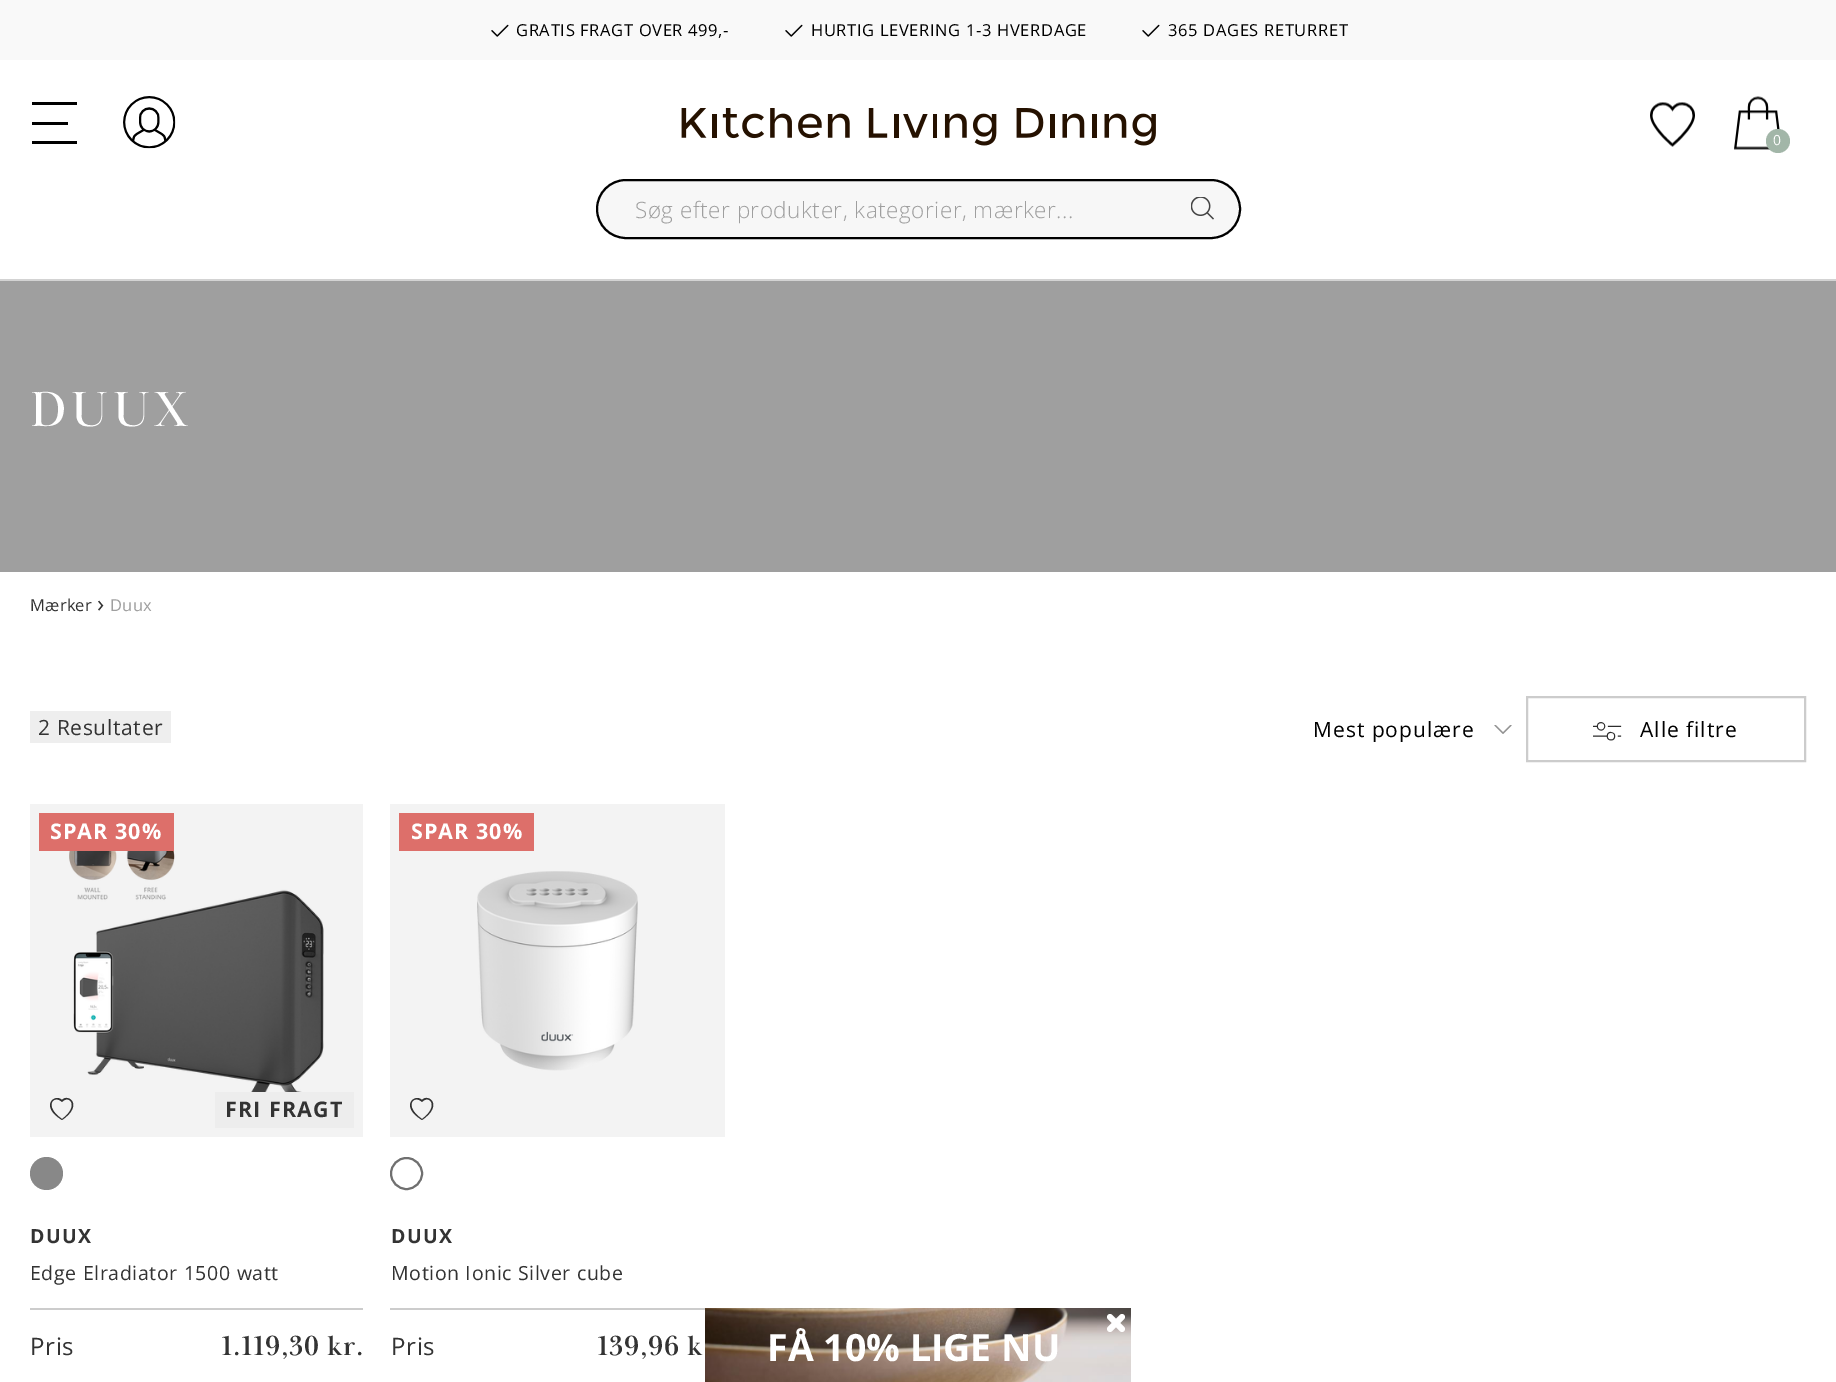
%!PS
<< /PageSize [1836 1382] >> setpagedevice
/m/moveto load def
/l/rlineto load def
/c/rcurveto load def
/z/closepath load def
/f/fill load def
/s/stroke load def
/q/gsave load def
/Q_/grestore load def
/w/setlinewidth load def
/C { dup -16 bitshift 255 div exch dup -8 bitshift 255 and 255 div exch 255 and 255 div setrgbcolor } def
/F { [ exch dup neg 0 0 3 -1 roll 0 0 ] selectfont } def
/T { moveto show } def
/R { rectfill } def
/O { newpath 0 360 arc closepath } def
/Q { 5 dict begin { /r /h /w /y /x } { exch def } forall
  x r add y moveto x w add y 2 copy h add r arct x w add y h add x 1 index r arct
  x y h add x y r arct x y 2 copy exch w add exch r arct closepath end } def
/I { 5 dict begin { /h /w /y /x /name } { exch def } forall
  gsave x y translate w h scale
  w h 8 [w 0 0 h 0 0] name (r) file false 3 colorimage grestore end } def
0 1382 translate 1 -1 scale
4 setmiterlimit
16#FFFFFF C
0 0 1836 1382 R
16#F9F9F9 C
0 0 1836 60 R
(1.rgb) 491 24 18 13 I
/OpenSans-Regular 16.5 F
16#000000 C
516 36 m .65 0 (GRATIS FRAGT OVER 499,-) ashow
(1.rgb) 785 24 18 13 I
811 36 m .65 0 (HURTIG LEVERING 1-3 HVERDAGE) ashow
(1.rgb) 1142 24 18 13 I
1168 36 m .65 0 (365 DAGES RETURRET) ashow
16#D3D3D3 C
0 279 1836 2 R
16#000000 C
32 102 45 3 R
32 122 36 3 R
32 141 45 3 R
(2.rgb) 123 96 53 53 I
(3.rgb) 1650 102 45 45 I
(4.rgb) 1734 96 46 54 I
16#A2B6A8 C
1778 141 12 O f
/OpenSans-Regular 14 F
16#FFFFFF C
1773 145 m .5 0 (0) ashow
(5.rgb) 681 108 475 38 I
16#F7F7F7 C
597 180 643 58 29 Q q f Q_
16#000000 C
2 w
s
/OpenSans-Light 22.5 F
16#9F9F9F C
635 218 m .5 0 (Søg efter produkter, kategorier, mærker...) ashow
(6.rgb) 1191 197 23 23 I
0 281 1836 291 R
/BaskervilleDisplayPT-Regular 51 F
16#FFFFFF C
30 426 m 5 0 (DUUX) ashow
/OpenSans-Regular 16.5 F
16#333333 C
30 611 m .25 0 (Mærker) ashow
/OpenSans-Regular 24 F
97 612 m .65 0 (›) ashow
/OpenSans-Regular 16.5 F
16#9F9F9F C
110 611 m .25 0 (Duux) ashow
16#EEEEEE C
30 711 141 32 R
/OpenSans-Regular 21 F
16#333333 C
38 735 m .65 0 (2 Resultater) ashow
(7.rgb) 1494 725 18 9 I
16#000000 C
1313 737 m 1 0 (Mest populære) ashow
16#CCCCCC C
1527 697 278 64 rectstroke
(8.rgb) 1593 722 29 19 I
16#000000 C
1640 737 m 1 0 (Alle filtre) ashow
16#F3F3F3 C
30 804 333 333 R
(9.rgb) 69 851 255 241 I
16#DD6F6A C
39 813 135 38 R
/OpenSans-Bold 21.5 F
16#FFFFFF C
50 839 m 1 0 (SPAR 30%) ashow
16#333333 C
62 1102 m -8 -8 -19 4 0 17 c 18 -13 7 -25 0 -17 c z 62 1120 m -23 -14 -7 -27 0 -20 c 6 -7 22 5 0 20 c z f
16#EDEDED C
215 1092 139 36 R
16#333333 C
225 1117 m 1.25 0 (FRI FRAGT) ashow
16#888888 C
46.5 1173.5 16.5 O f
/OpenSans-Bold 19.5 F
16#333333 C
30 1243 m 1.25 0 (DUUX) ashow
/OpenSans-Regular 19.5 F
30 1280 m .65 0 (Edge Elradiator 1500 watt) ashow
16#CCCCCC C
30 1308 333 2 R
/OpenSans-Regular 24 F
16#333333 C
30 1355 m .65 0 (Pris) ashow
/BaskervilleDisplayPT-Bold 28.5 F
221 1355 m .65 0 (1.119,30 kr.) ashow
16#F3F3F3 C
390 804 335 333 R
(10.rgb) 477 871 161 200 I
16#DD6F6A C
399 813 135 38 R
/OpenSans-Bold 21.5 F
16#FFFFFF C
411 839 m 1 0 (SPAR 30%) ashow
16#333333 C
422 1102 m -8 -8 -19 4 0 17 c 18 -13 7 -25 0 -17 c z 422 1120 m -23 -14 -7 -27 0 -20 c 6 -7 22 5 0 20 c z f
16#707070 C
406.5 1173.5 15.5 O s
/OpenSans-Bold 19.5 F
16#333333 C
391 1243 m 1.25 0 (DUUX) ashow
/OpenSans-Regular 19.5 F
391 1280 m .65 0 (Motion Ionic Silver cube) ashow
16#CCCCCC C
390 1308 315 2 R
/OpenSans-Regular 24 F
16#333333 C
391 1355 m .65 0 (Pris) ashow
/BaskervilleDisplayPT-Bold 28.5 F
597 1355 m .65 0 (139,96 k) ashow
(11.rgb) 705 1308 426 74 I
16#FFFFFF C
6 w
1 setlinecap
1 setlinejoin
1110 1317 m 12 12 l 1110 1329 m 12 -12 l z s
/OpenSans-Bold 37.5 F
(FÅ 10% LIGE NU) 767 1361 T
showpage
